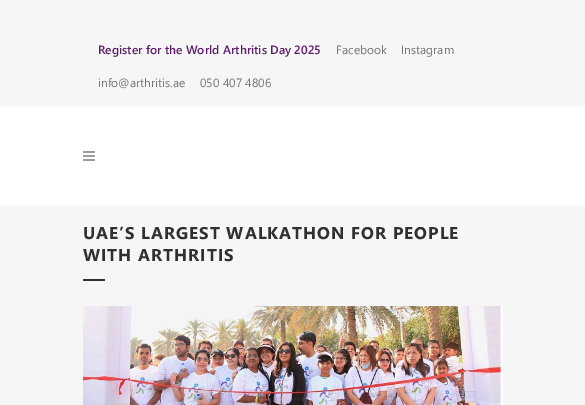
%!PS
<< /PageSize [585 405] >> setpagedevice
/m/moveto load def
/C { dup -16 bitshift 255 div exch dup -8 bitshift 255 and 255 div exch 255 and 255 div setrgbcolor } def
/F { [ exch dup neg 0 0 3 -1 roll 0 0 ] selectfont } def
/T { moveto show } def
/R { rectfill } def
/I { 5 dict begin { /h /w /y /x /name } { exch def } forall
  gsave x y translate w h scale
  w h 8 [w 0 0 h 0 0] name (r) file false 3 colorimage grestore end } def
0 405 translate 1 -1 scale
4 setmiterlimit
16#F6F6F6 C
0 0 585 405 R
/SegoeUI-SemiBold 12 F
16#5E1C6B C
(Register for the World Arthritis Day 2025) 98 54 T
/SegoeUI-Regular 12 F
16#777777 C
(Facebook) 336 54 T
(Instagram) 401 54 T
(info@arthritis.ae) 98 87 T
(050 407 4806) 200 87 T
16#FFFFFF C
0 106 585 100 R
(1.rgb) 83 151 12 10 I
/SegoeUI-Bold 17 F
16#303030 C
83 239 m 1 0 (UAE’S LARGEST WALKATHON FOR PEOPLE) ashow
83 261 m 1 0 (WITH ARTHRITIS) ashow
83 279 22 2 R
(2.rgb) 83 306 420 99 I
showpage
